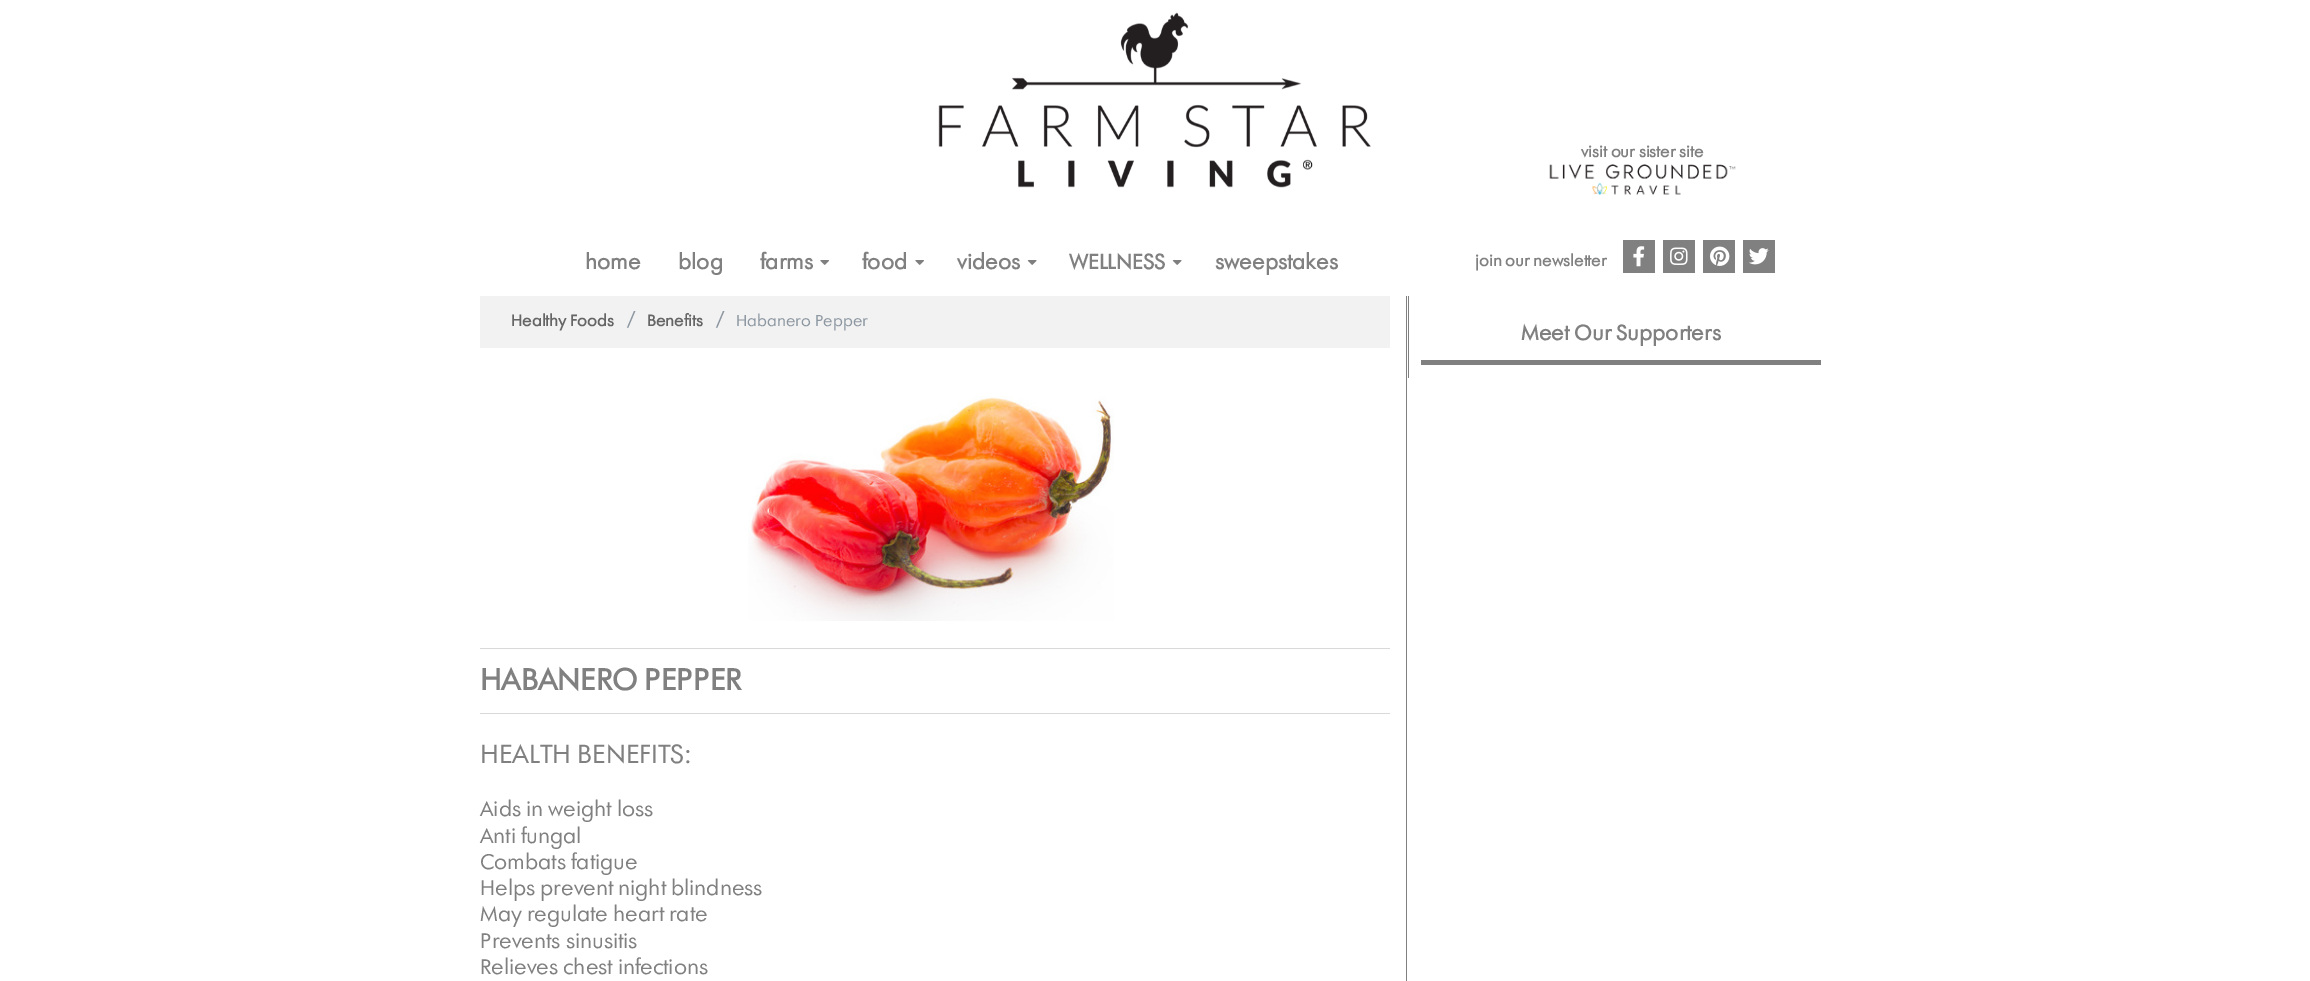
%!PS
<< /PageSize [2310 981] >> setpagedevice
/C { dup -16 bitshift 255 div exch dup -8 bitshift 255 and 255 div exch 255 and 255 div setrgbcolor } def
/F { [ exch dup neg 0 0 3 -1 roll 0 0 ] selectfont } def
/T { moveto show } def
/R { rectfill } def
/I { 5 dict begin { /h /w /y /x /name } { exch def } forall
  gsave x y translate w h scale
  w h 8 [w 0 0 h 0 0] name (r) file false 3 colorimage grestore end } def
0 981 translate 1 -1 scale
4 setmiterlimit
16#FFFFFF C
0 0 2310 981 R
(1.rgb) 938 12 433 176 I
/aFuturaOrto-Bold 15 F
16#808080 C
(visit our sister site) 1581 157 T
(2.rgb) 1549 164 187 31 I
/aFuturaOrto-Bold 20 F
(home) 585 269 T
(blog) 678 269 T
(farms) 760 269 T
(3.rgb) 820 260 9 5 I
(food) 862 269 T
(3.rgb) 915 260 9 5 I
(videos) 957 269 T
(4.rgb) 1027 260 10 5 I
(WELLNESS) 1069 269 T
(4.rgb) 1172 260 10 5 I
(sweepstakes) 1215 269 T
/aFuturaOrto-Bold 15 F
(join our newsletter) 1475 266 T
1623 240 32 33 R
(5.rgb) 1633 246 12 21 I
1663 240 32 33 R
(6.rgb) 1670 247 18 18 I
1703 240 32 33 R
(7.rgb) 1710 246 20 20 I
1743 240 32 33 R
(8.rgb) 1749 248 20 17 I
16#F2F2F2 C
480 296 910 52 R
16#656565 C
(Healthy Foods) 511 326 T
/aFuturaOrto-Regular 20 F
16#8D97A1 C
(/) 627 326 T
/aFuturaOrto-Bold 15 F
16#656565 C
(Benefits) 647 326 T
/aFuturaOrto-Regular 20 F
16#8D97A1 C
(/) 716 326 T
/aFuturaOrto-Regular 15 F
(Habanero Pepper) 736 326 T
(9.rgb) 748 396 366 225 I
16#D9D9D9 C
480 648 910 1 R
480 713 910 1 R
/aFuturaOrto-Bold 28.75 F
16#808080 C
(HABANERO PEPPER) 480 690 T
/aFuturaOrto-Regular 25 F
(HEALTH BENEFITS:) 480 763 T
/aFuturaOrto-Regular 20 F
(Aids in weight loss) 480 816 T
(Anti fungal) 480 843 T
(Combats fatigue) 480 869 T
(Helps prevent night blindness) 480 895 T
(May regulate heart rate) 480 921 T
(Prevents sinusitis) 480 948 T
(Relieves chest infections) 480 974 T
1408 296 1 82 R
1406 296 1 685 R
/aFuturaOrto-Bold 20 F
(Meet Our Supporters) 1521 340 T
1421 360 400 5 R
showpage
